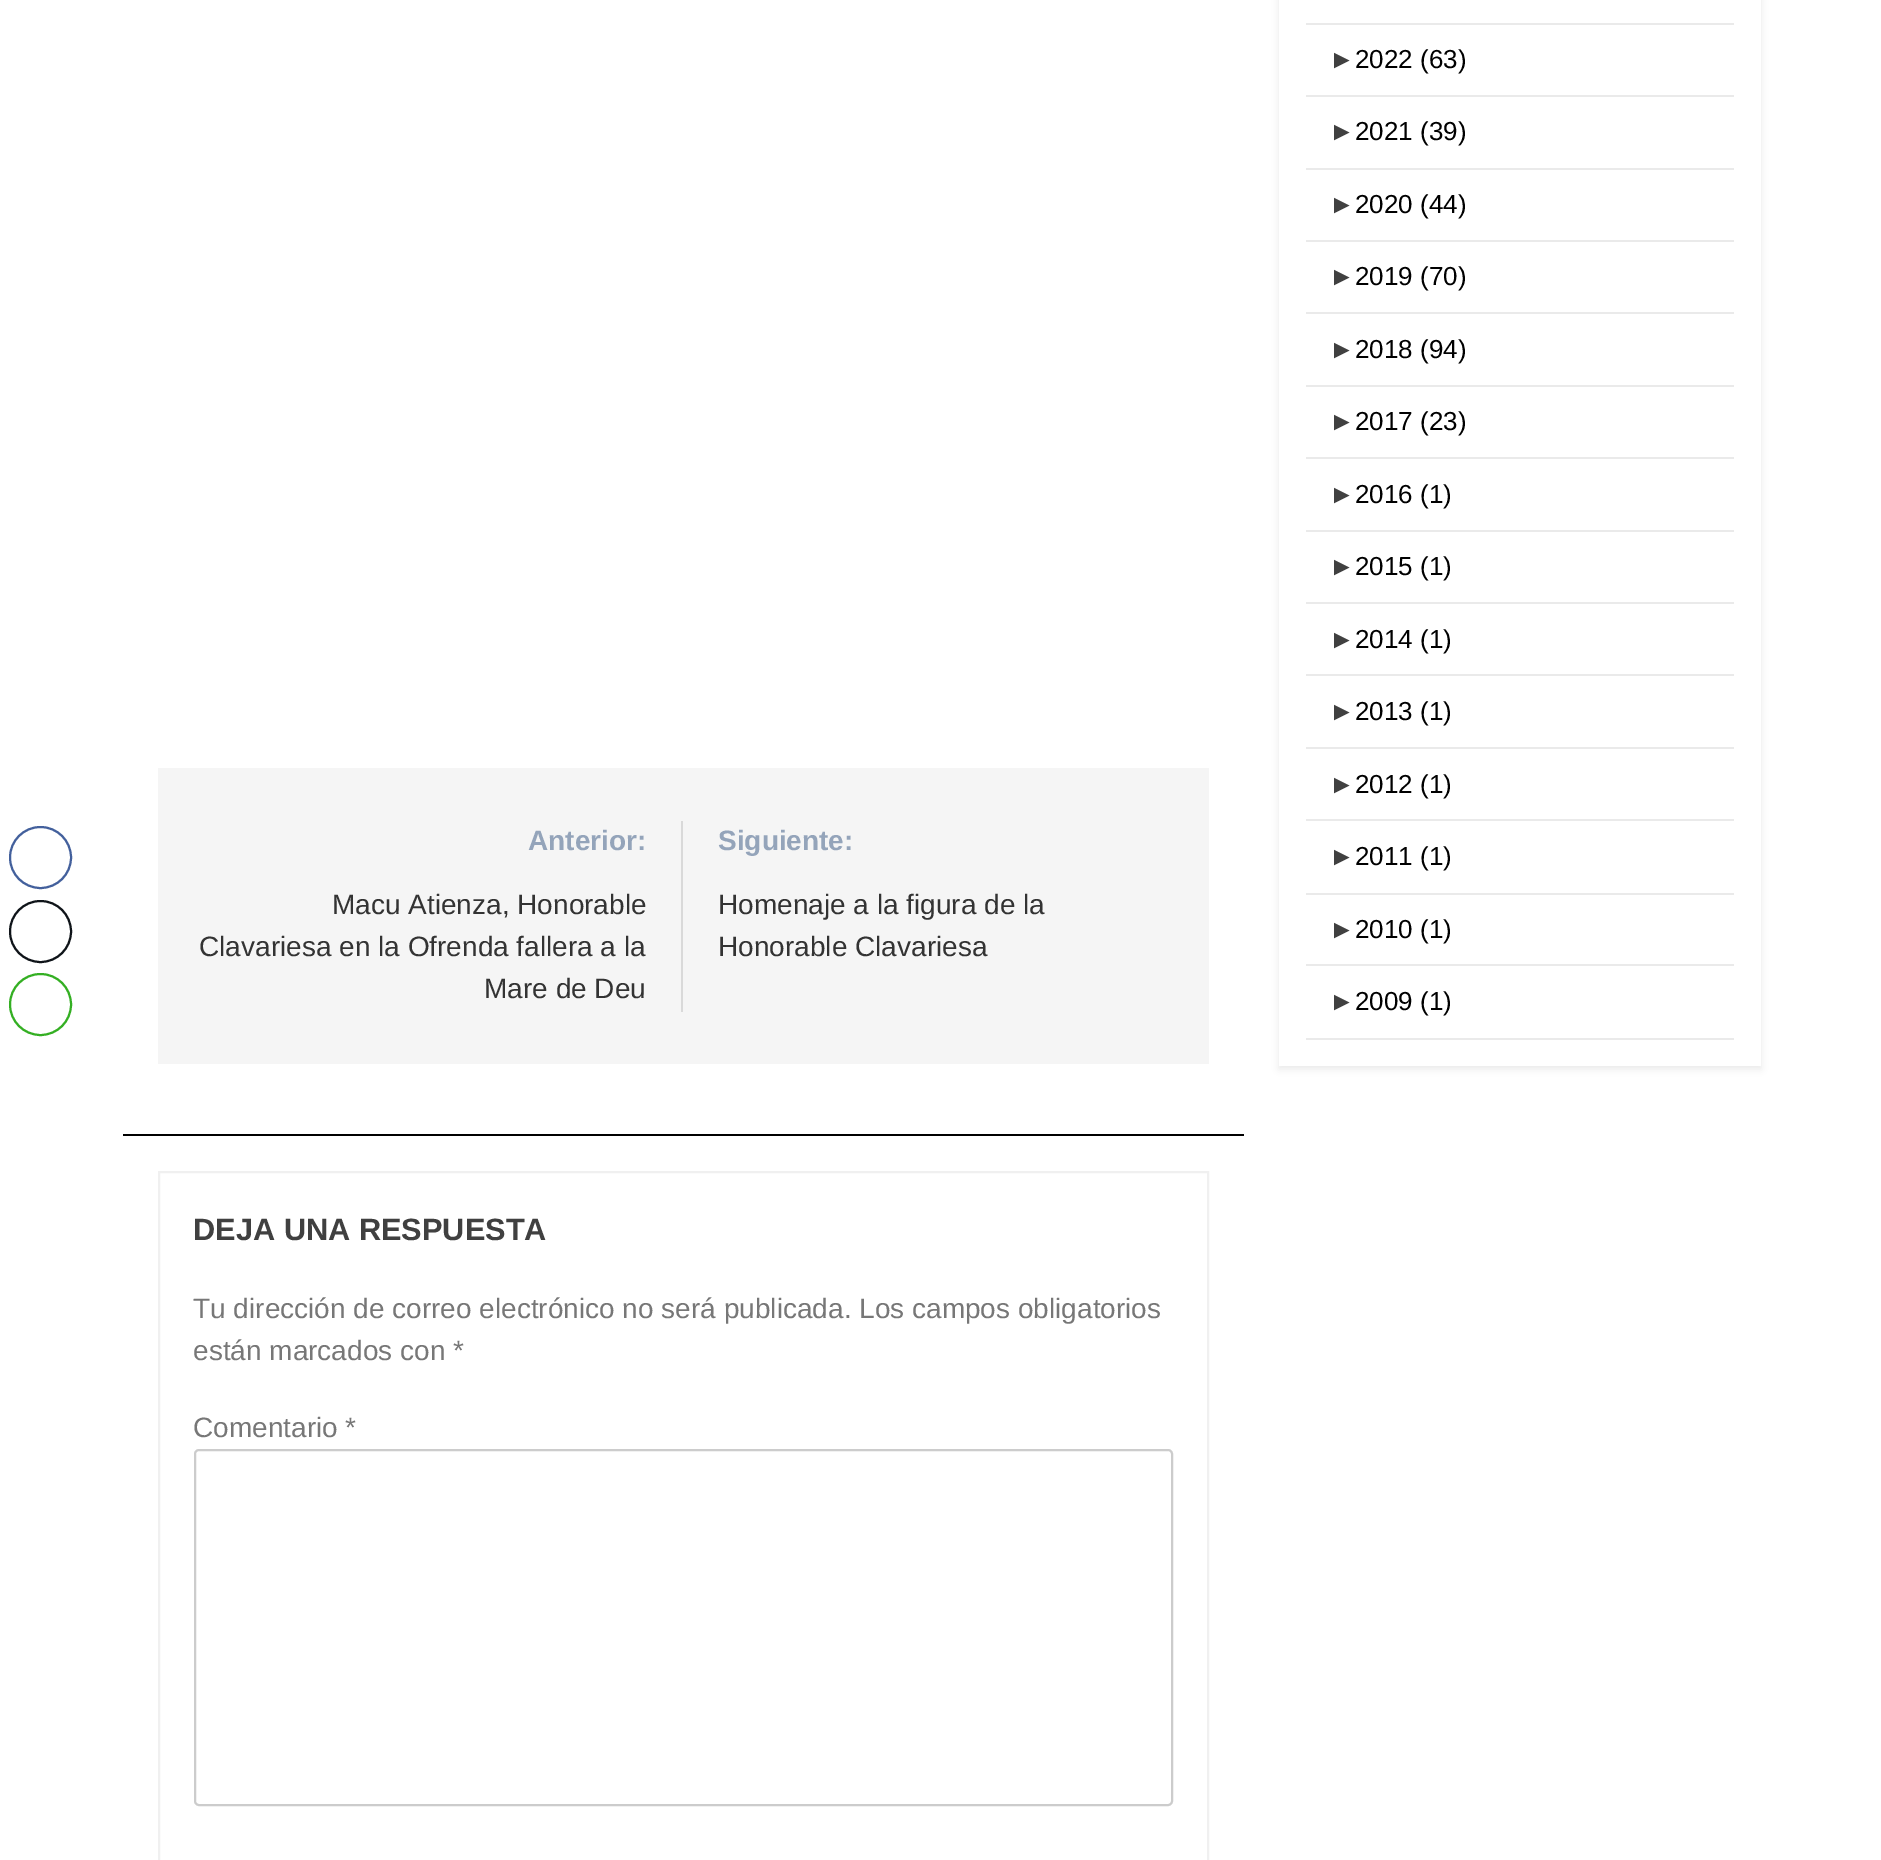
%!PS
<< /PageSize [1881 1860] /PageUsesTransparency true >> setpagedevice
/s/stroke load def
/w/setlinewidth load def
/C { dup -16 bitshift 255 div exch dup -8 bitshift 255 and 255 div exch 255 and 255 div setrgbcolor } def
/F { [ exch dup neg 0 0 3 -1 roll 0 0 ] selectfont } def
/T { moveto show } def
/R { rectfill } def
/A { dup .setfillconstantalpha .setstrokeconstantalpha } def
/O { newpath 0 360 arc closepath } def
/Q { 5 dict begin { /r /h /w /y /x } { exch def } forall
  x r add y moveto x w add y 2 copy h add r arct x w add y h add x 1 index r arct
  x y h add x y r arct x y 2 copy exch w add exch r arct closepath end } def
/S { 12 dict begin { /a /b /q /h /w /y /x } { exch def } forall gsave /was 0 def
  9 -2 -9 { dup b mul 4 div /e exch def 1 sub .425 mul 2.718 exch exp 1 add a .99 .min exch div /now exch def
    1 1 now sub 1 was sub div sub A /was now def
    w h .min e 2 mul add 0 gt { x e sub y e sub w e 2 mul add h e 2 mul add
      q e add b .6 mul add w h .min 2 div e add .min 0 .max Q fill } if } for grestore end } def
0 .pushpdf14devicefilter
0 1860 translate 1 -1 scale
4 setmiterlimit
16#FFFFFF C
0 0 1881 1860 R
16#43609C C
2 w
40.5 857.5 30.5 O s
16#0F1419 C
40.5 931.5 30.5 O s
16#34AF23 C
40.5 1004.5 30.5 O s
16#000000 C
1279 -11 482 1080 0 3.5 .08 S
16#FFFFFF C
1279 0 482 1066 R
16#EAEAEA C
1306 23 428 2 R
1306 95 428 2 R
/LiberationSans-Regular 26 F
16#404040 C
(►) 1329 68 T
16#000000 C
(2022 \(63\)) 1355 68 T
16#EAEAEA C
1306 168 428 2 R
16#404040 C
(►) 1329 140 T
16#000000 C
(2021 \(39\)) 1355 140 T
16#EAEAEA C
1306 240 428 2 R
16#404040 C
(►) 1329 213 T
16#000000 C
(2020 \(44\)) 1355 213 T
16#EAEAEA C
1306 312 428 2 R
16#404040 C
(►) 1329 285 T
16#000000 C
(2019 \(70\)) 1355 285 T
16#EAEAEA C
1306 385 428 2 R
16#404040 C
(►) 1329 358 T
16#000000 C
(2018 \(94\)) 1355 358 T
16#EAEAEA C
1306 457 428 2 R
16#404040 C
(►) 1329 430 T
16#000000 C
(2017 \(23\)) 1355 430 T
16#EAEAEA C
1306 530 428 2 R
16#404040 C
(►) 1329 503 T
16#000000 C
(2016 \(1\)) 1355 503 T
16#EAEAEA C
1306 602 428 2 R
16#404040 C
(►) 1329 575 T
16#000000 C
(2015 \(1\)) 1355 575 T
16#EAEAEA C
1306 674 428 2 R
16#404040 C
(►) 1329 648 T
16#000000 C
(2014 \(1\)) 1355 648 T
16#EAEAEA C
1306 747 428 2 R
16#404040 C
(►) 1329 720 T
16#000000 C
(2013 \(1\)) 1355 720 T
16#EAEAEA C
1306 819 428 2 R
16#404040 C
(►) 1329 793 T
16#000000 C
(2012 \(1\)) 1355 793 T
16#EAEAEA C
1306 893 428 2 R
16#404040 C
(►) 1329 865 T
16#000000 C
(2011 \(1\)) 1355 865 T
16#EAEAEA C
1306 964 428 2 R
16#404040 C
(►) 1329 938 T
16#000000 C
(2010 \(1\)) 1355 938 T
16#EAEAEA C
1306 1038 428 2 R
16#404040 C
(►) 1329 1010 T
16#000000 C
(2009 \(1\)) 1355 1010 T
16#F5F5F5 C
158 768 1051 296 R
16#D9D9D9 C
681 821 2 191 R
/LiberationSans-Bold 28 F
16#94A4BA C
(Anterior:) 528 850 T
/LiberationSans-Regular 28 F
16#333333 C
(Macu Atienza, Honorable) 332 914 T
(Clavariesa en la Ofrenda fallera a la) 199 956 T
(Mare de Deu) 484 998 T
/LiberationSans-Bold 28 F
16#94A4BA C
(Siguiente:) 718 850 T
/LiberationSans-Regular 28 F
16#333333 C
(Homenaje a la figura de la) 718 914 T
(Honorable Clavariesa) 718 956 T
16#000000 C
123 1134 1121 2 R
16#F0F0F0 C
159 1172 1049 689 rectstroke
/LiberationSans-Bold 30.75 F
16#404040 C
(DEJA UNA RESPUESTA) 193 1240 T
/LiberationSans-Regular 28 F
16#777777 C
(Tu dirección de correo electrónico no será publicada. Los campos obligatorios) 193 1318 T
(están marcados con *) 193 1360 T
(Comentario *) 193 1437 T
16#CCCCCC C
195 1450 977 355 4 Q s
.poppdf14devicefilter showpage
